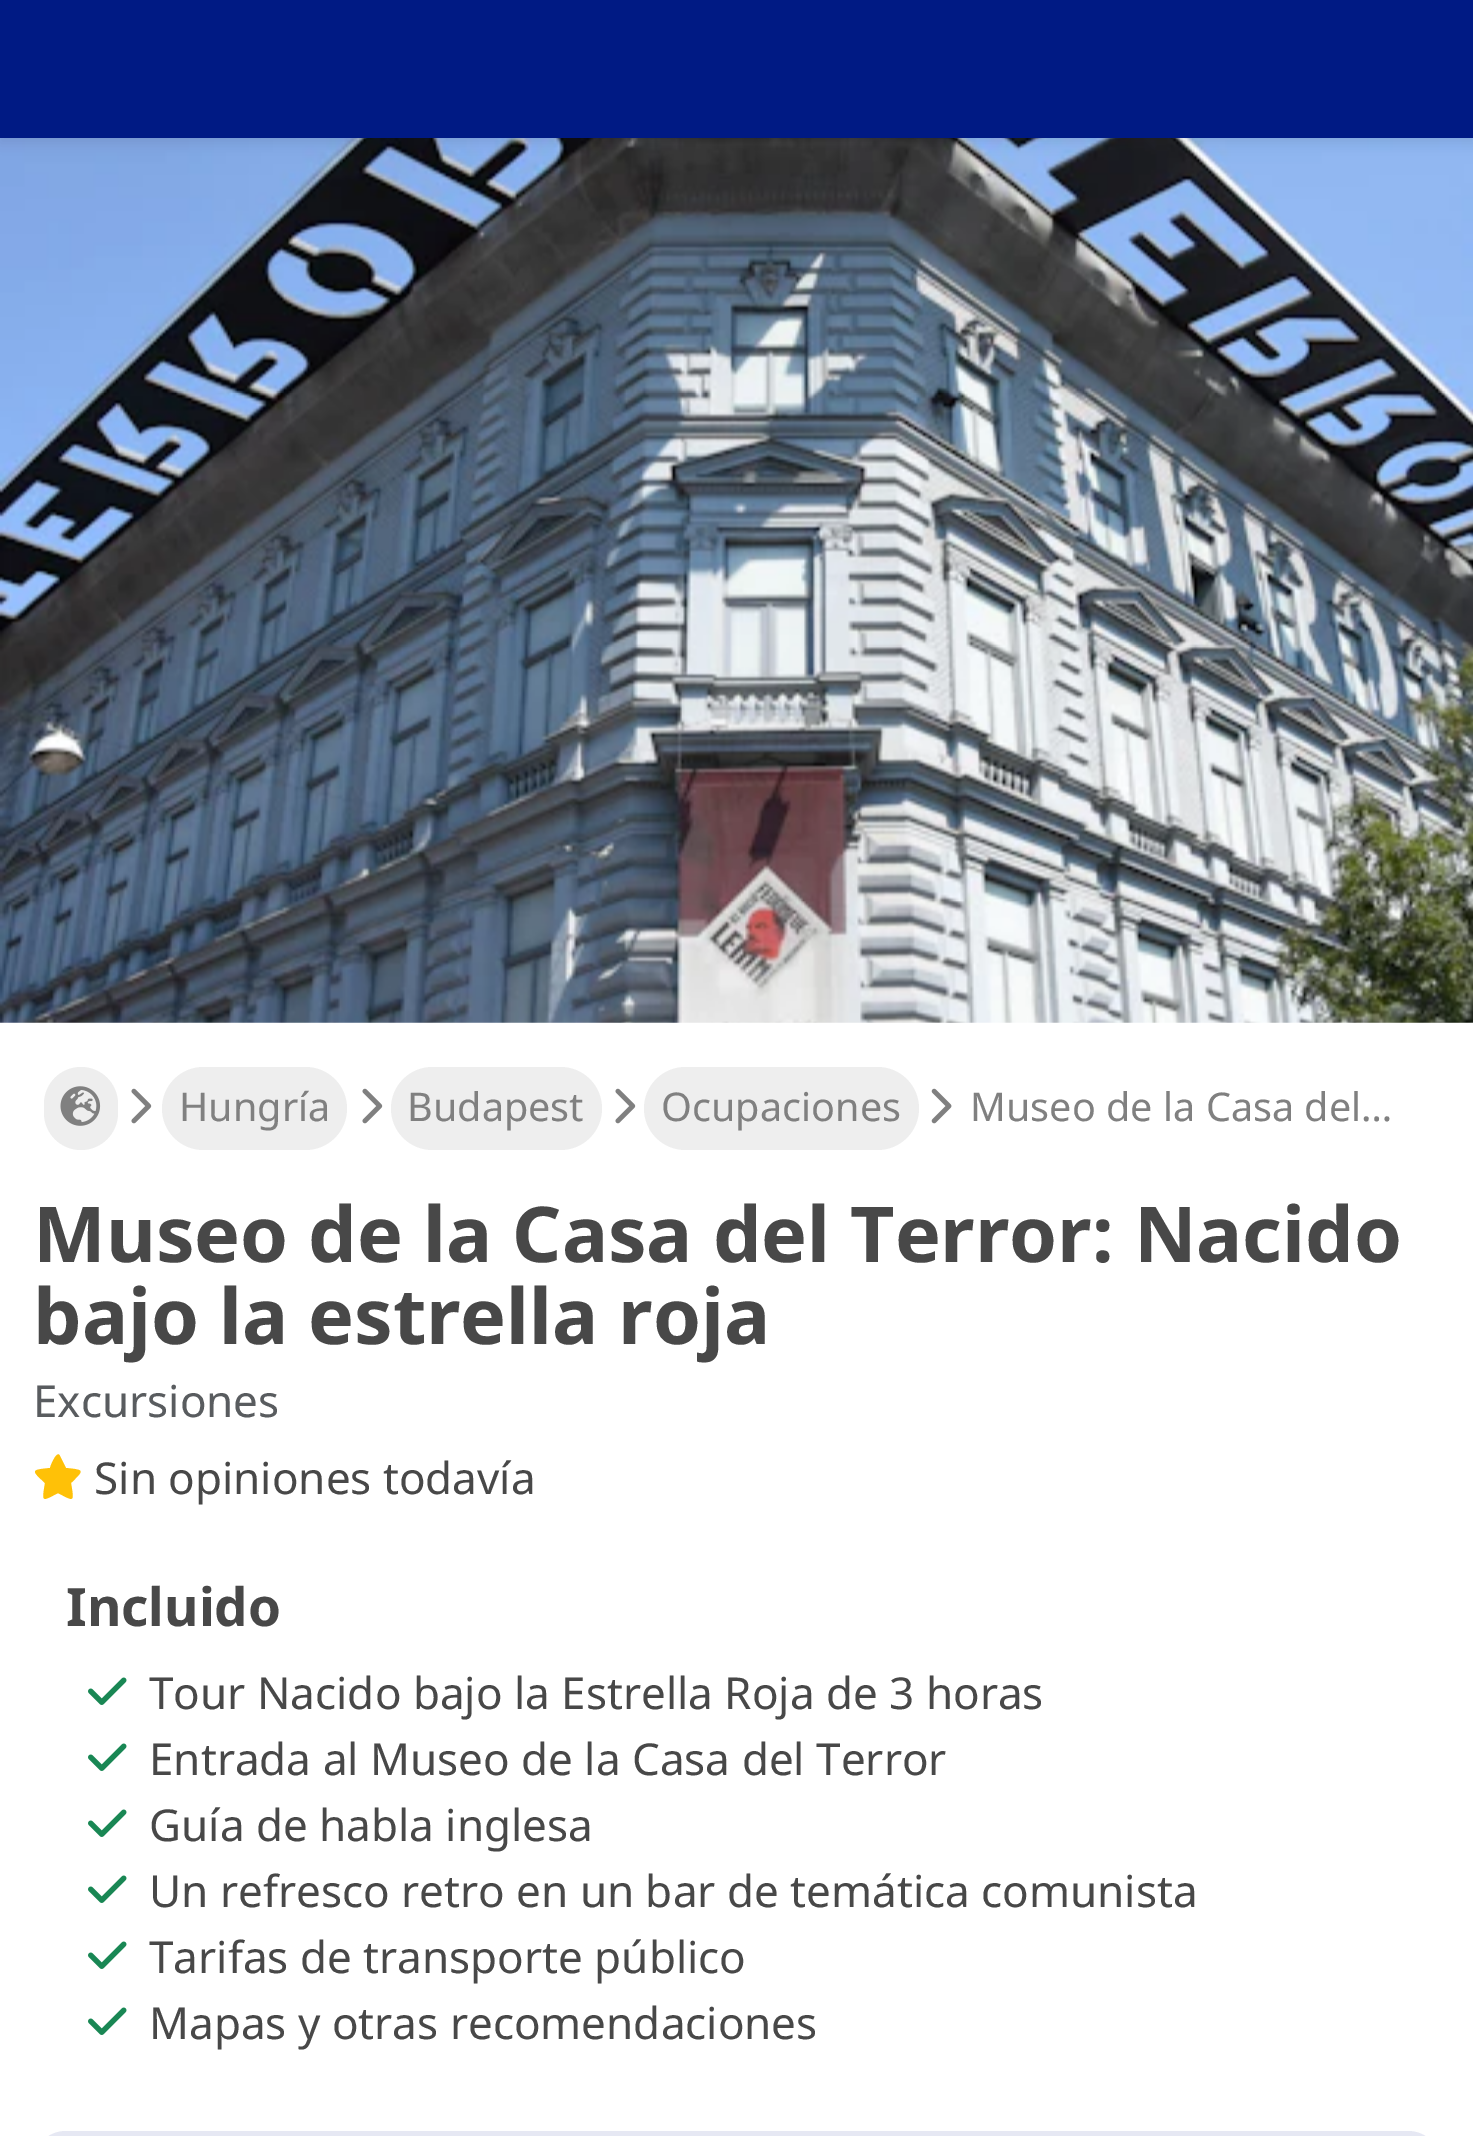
%!PS
<< /PageSize [1473 2136] /PageUsesTransparency true >> setpagedevice
/m/moveto load def
/c/rcurveto load def
/z/closepath load def
/f/fill load def
/C { dup -16 bitshift 255 div exch dup -8 bitshift 255 and 255 div exch 255 and 255 div setrgbcolor } def
/F { [ exch dup neg 0 0 3 -1 roll 0 0 ] selectfont } def
/T { moveto show } def
/R { rectfill } def
/A { dup .setfillconstantalpha .setstrokeconstantalpha } def
/Q { 5 dict begin { /r /h /w /y /x } { exch def } forall
  x r add y moveto x w add y 2 copy h add r arct x w add y h add x 1 index r arct
  x y h add x y r arct x y 2 copy exch w add exch r arct closepath end } def
/S { 12 dict begin { /a /b /q /h /w /y /x } { exch def } forall gsave /was 0 def
  9 -2 -9 { dup b mul 4 div /e exch def 1 sub .425 mul 2.718 exch exp 1 add a .99 .min exch div /now exch def
    1 1 now sub 1 was sub div sub A /was now def
    w h .min e 2 mul add 0 gt { x e sub y e sub w e 2 mul add h e 2 mul add
      q e add b .6 mul add w h .min 2 div e add .min 0 .max Q fill } if } for grestore end } def
/I { 5 dict begin { /h /w /y /x /name } { exch def } forall
  gsave x y translate w h scale
  w h 8 [w 0 0 h 0 0] name (r) file false 3 colorimage grestore end } def
0 .pushpdf14devicefilter
0 2136 translate 1 -1 scale
4 setmiterlimit
16#FFFFFF C
0 0 1473 2136 R
(1.rgb) 0 138 1473 885 I
16#000000 C
0 6 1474 137 0 5.5 .07 S
16#001A84 C
0 0 1473 138 R
16#EEEEEE C
44 1067 74 83 37 Q f
(2.rgb) 60 1086 41 40 I
(3.rgb) 131 1088 21 36 I
162 1067 185 83 41.5 Q f
/NotoSans-Regular 39.6 F
16#808080 C
(Hungría) 179 1121 T
(3.rgb) 362 1088 21 36 I
16#EEEEEE C
391 1067 211 83 41.5 Q f
16#808080 C
(Budapest) 407 1121 T
(3.rgb) 615 1088 21 36 I
16#EEEEEE C
644 1067 275 83 41.5 Q f
16#808080 C
(Ocupaciones) 661 1121 T
(4.rgb) 931 1088 21 36 I
(Museo de la Casa del…) 970 1121 T
/NotoSans-Bold 77 F
16#484848 C
(Museo de la Casa del Terror: Nacido) 33 1262 T
(bajo la estrella roja) 33 1344 T
/NotoSans-Regular 44 F
16#595C5F C
(Excursiones) 33 1417 T
16#FFC107 C
60 1456 m -3 -7 -10 11 -10 12 c -19 2 -19 2 -5 15 c -3 19 -4 19 13 10 c 17 9 16 9 13 -10 c 13 -13 14 -13 -5 -15 c z f
16#484848 C
(Sin opiniones todavía) 94 1494 T
/NotoSans-Bold 53 F
(Incluido) 66 1626 T
(5.rgb) 88 1677 39 28 I
/NotoSans-Regular 44 F
(Tour Nacido bajo la Estrella Roja de 3 horas) 149 1709 T
(5.rgb) 88 1743 39 28 I
(Entrada al Museo de la Casa del Terror) 149 1775 T
(5.rgb) 88 1809 39 28 I
(Guía de habla inglesa) 149 1841 T
(5.rgb) 88 1875 39 28 I
(Un refresco retro en un bar de temática comunista) 149 1907 T
(5.rgb) 88 1941 39 28 I
(Tarifas de transporte público) 149 1973 T
(5.rgb) 88 2007 39 28 I
(Mapas y otras recomendaciones) 149 2039 T
16#E6E8F3 C
33 2131 1408 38 33 Q f
.poppdf14devicefilter showpage
